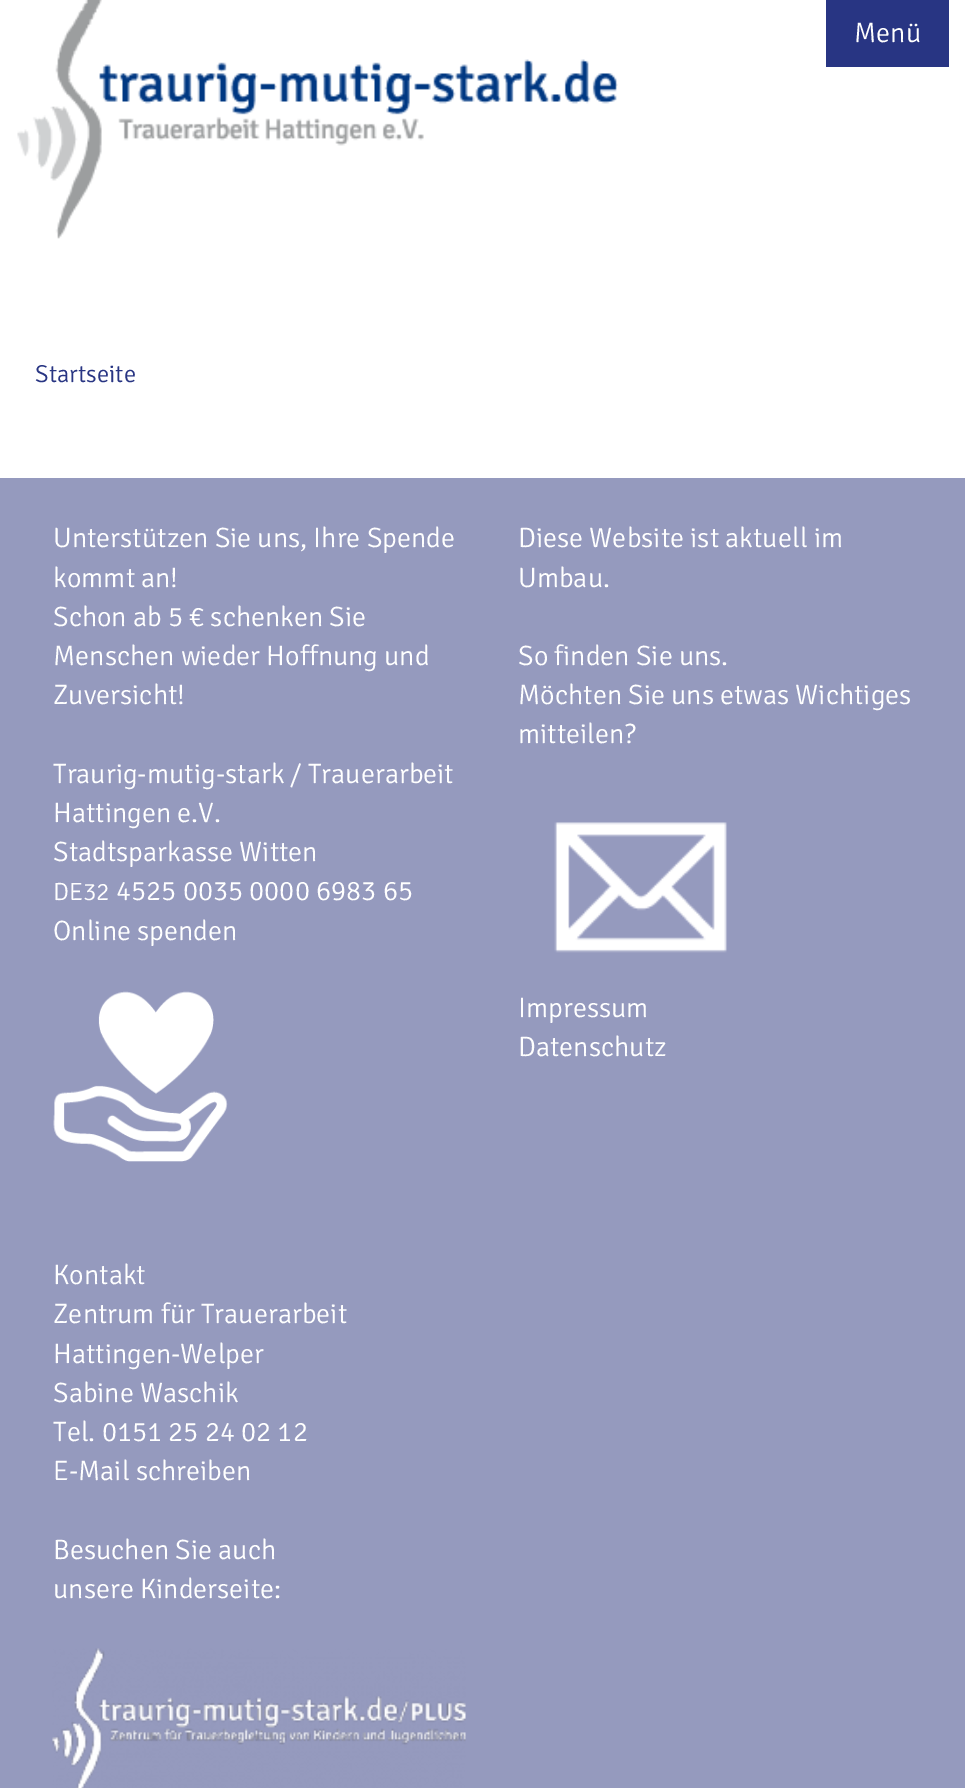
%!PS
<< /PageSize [965 1788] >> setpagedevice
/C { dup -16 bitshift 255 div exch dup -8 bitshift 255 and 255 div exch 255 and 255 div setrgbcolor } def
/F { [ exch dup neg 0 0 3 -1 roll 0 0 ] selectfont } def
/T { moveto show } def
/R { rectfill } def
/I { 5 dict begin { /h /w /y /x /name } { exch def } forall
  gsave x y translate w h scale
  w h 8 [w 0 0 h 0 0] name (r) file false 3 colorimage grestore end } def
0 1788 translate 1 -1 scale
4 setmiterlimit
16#FFFFFF C
0 0 965 1788 R
(1.rgb) 17 0 601 239 I
16#283583 C
826 0 123 67 R
/Signika-Light 28 F
16#FFFFFF C
(Menü) 854 42 T
/Signika-Light 24.5 F
16#283583 C
(Startseite) 35 382 T
16#959ABE C
0 478 965 1310 R
/Signika-Light 28 F
16#FFFFFF C
(Unterstützen Sie uns, Ihre Spende) 53 547 T
(kommt an!) 53 587 T
(Schon ab 5 € schenken Sie) 53 626 T
(Menschen wieder Hoffnung und) 53 665 T
(Zuversicht!) 53 704 T
(Traurig-mutig-stark / Trauerarbeit) 53 783 T
(Hattingen e.V.) 53 822 T
(Stadtsparkasse Witten) 53 861 T
/Signika-Light 25 F
(DE32) 53 900 T
/Signika-Light 28 F
(4525 0035 0000 6983 65) 116 900 T
(Online spenden) 53 940 T
(2.rgb) 53 991 175 171 I
(Diese Website ist aktuell im) 518 547 T
(Umbau.) 518 587 T
(So finden Sie uns.) 518 665 T
(Möchten Sie uns etwas Wichtiges) 518 704 T
(mitteilen?) 518 743 T
(3.rgb) 554 822 173 131 I
(Impressum) 518 1017 T
(Datenschutz) 518 1056 T
(Kontakt) 53 1284 T
(Zentrum für Trauerarbeit) 53 1323 T
(Hattingen-Welper) 53 1363 T
(Sabine Waschik) 53 1402 T
(Tel. 0151 25 24 02 12) 53 1441 T
(E-Mail schreiben) 53 1480 T
(Besuchen Sie auch) 53 1559 T
(unsere Kinderseite:) 53 1598 T
(4.rgb) 52 1648 414 140 I
showpage
